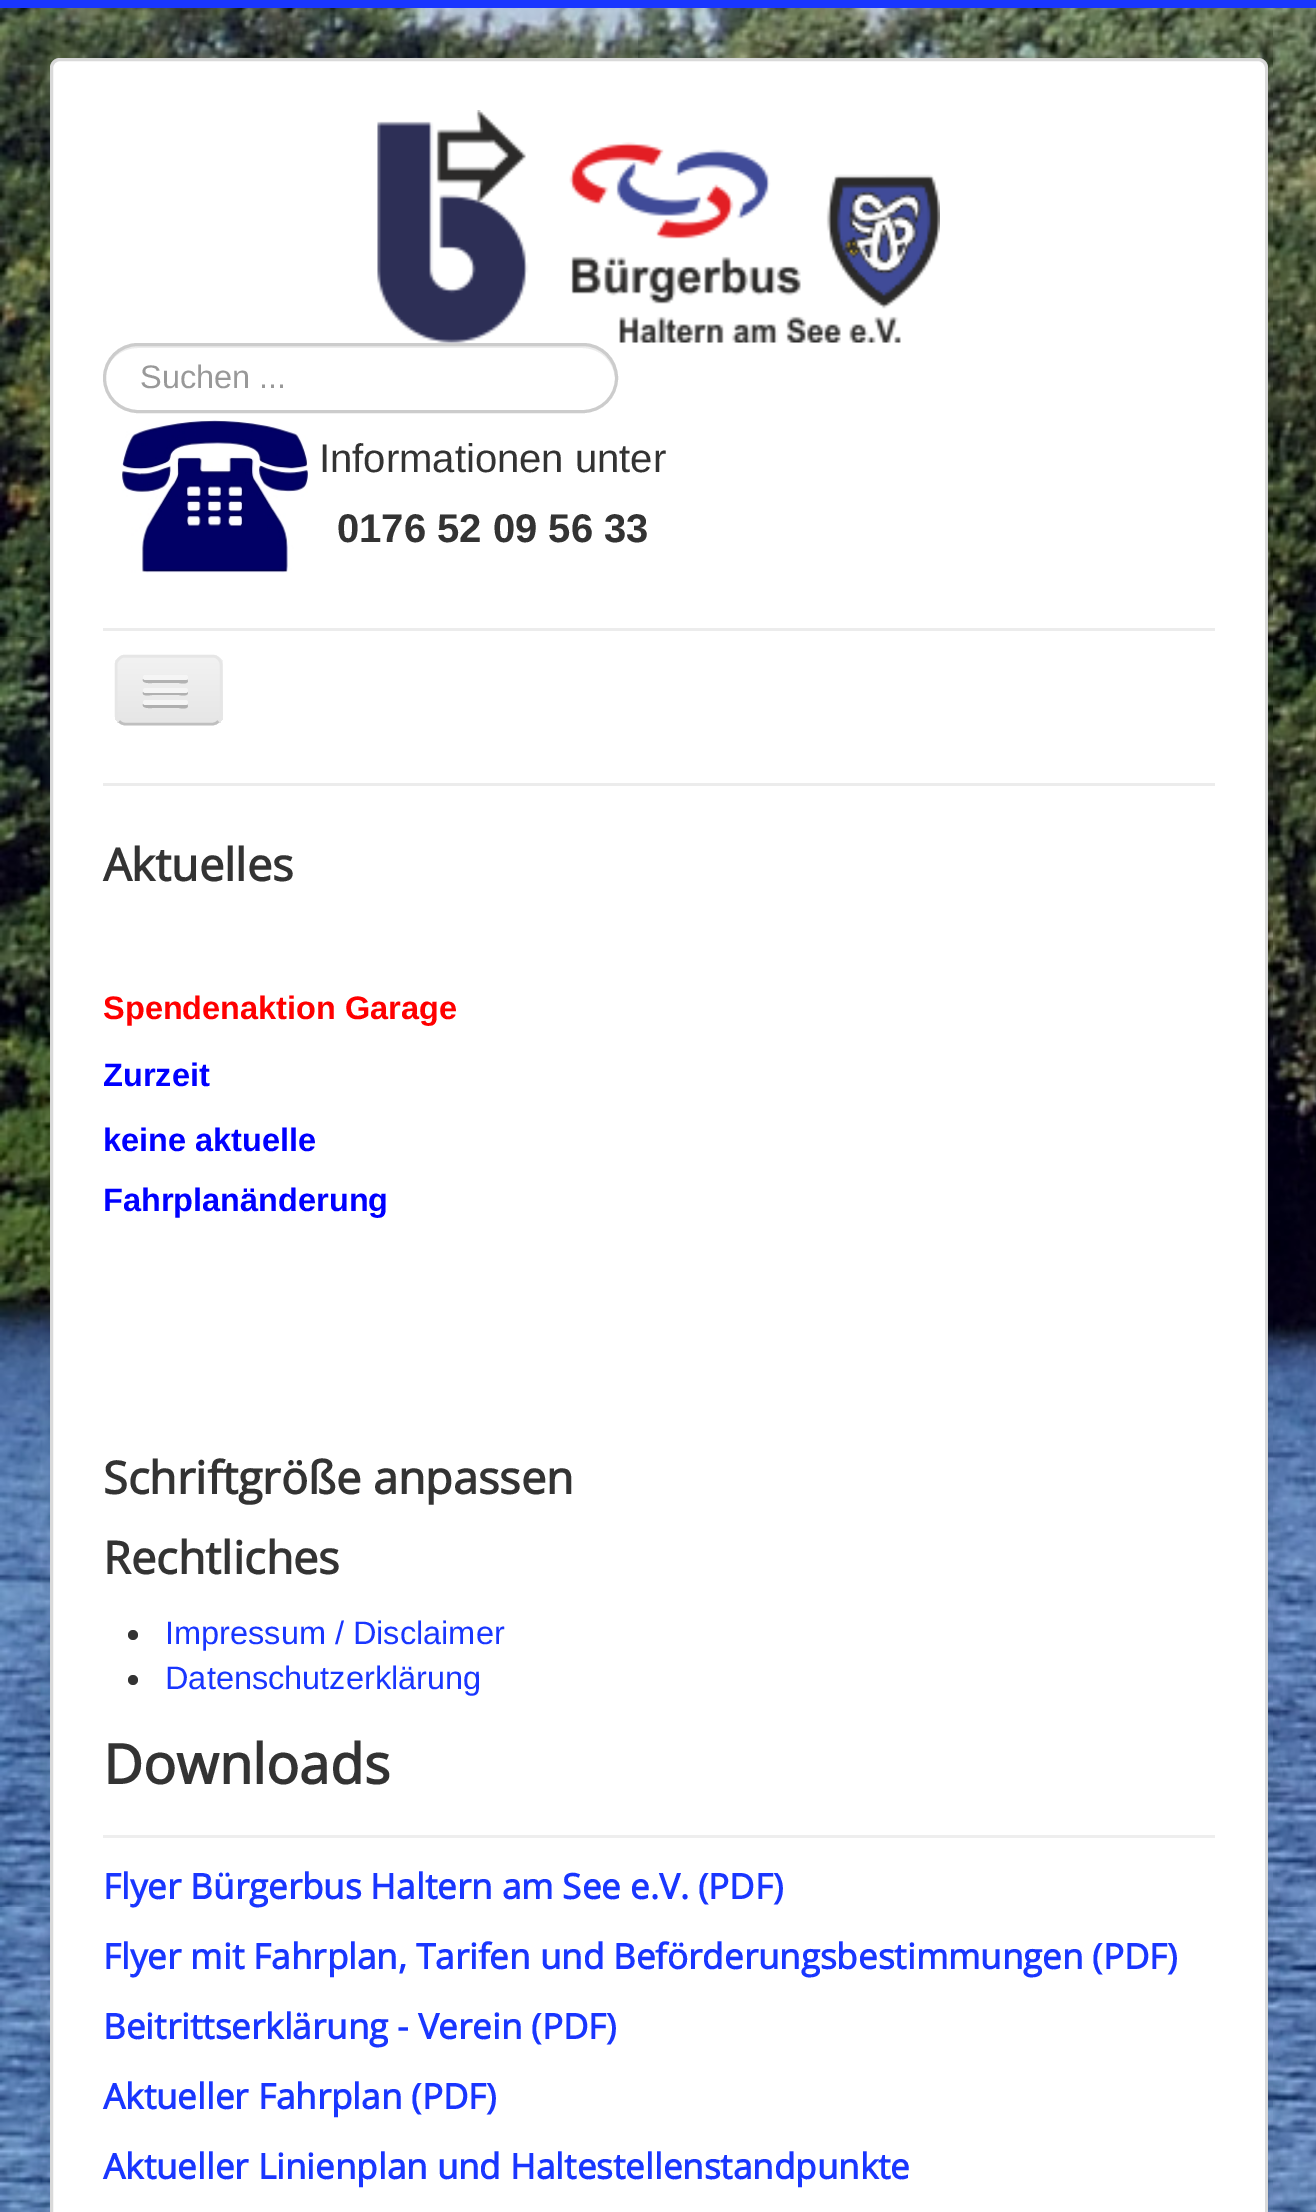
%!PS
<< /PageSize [1316 2212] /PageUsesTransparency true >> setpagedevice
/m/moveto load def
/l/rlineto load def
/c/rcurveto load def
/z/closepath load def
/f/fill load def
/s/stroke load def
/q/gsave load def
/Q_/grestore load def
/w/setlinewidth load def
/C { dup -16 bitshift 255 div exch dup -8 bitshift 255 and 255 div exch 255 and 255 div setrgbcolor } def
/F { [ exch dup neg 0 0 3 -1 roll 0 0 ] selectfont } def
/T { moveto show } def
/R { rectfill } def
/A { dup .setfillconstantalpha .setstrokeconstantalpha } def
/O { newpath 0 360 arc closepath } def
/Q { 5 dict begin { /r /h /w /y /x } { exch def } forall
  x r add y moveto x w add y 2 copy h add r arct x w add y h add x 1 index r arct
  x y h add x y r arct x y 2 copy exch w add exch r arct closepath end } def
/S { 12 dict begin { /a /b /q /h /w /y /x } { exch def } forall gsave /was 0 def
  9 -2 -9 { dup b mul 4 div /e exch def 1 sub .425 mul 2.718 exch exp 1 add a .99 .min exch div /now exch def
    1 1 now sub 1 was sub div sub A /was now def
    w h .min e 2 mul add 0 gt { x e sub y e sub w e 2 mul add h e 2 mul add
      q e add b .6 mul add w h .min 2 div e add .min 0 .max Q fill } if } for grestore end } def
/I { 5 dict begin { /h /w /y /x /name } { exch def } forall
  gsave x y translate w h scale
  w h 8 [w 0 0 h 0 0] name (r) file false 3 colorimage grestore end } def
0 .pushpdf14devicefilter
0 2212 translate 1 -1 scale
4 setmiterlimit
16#FFFFFF C
0 0 1316 2212 R
(1.rgb) 0 8 1316 2204 I
16#1936FF C
0 0 1316 8 R
16#000000 C
50 58 1218 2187 10 7.5 .05 S
16#FFFFFF C
50 58 1218 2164 10 Q f
0.15 A
16#000000 C
3 w
51.5 59.5 1215 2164 8.5 Q s
1 A
(2.rgb) 377 110 563 233 I
16#ECECEC C
138 348 m 444 0 l 18 0 32 13 33 31 c 1 -19 -14 -34 -33 -34 c -444 0 l -19 0 -34 15 -33 34 c 1 -18 15 -31 33 -31 c z f
16#CCCCCC C
104.5 344.5 512 67 33.5 Q s
/LiberationSans-Regular 32.5 F
16#999999 C
(Suchen ...) 140 388 T
(3.rgb) 122 420 186 153 I
/LiberationSans-Regular 40 F
16#333333 C
(Informationen unter) 319 472 T
/LiberationSans-Bold 40 F
(0176 52 09 56 33) 337 542 T
16#ECECEC C
103 628 1112 3 R
103 783 1112 3 R
16#EDEDED C
115 655 108 70 10 Q f
q
115 655 108 70 10 Q clip newpath
q 115 658 m 108 0 l 0 65 l -108 0 l z clip newpath
<< /ShadingType 2 /ColorSpace /DeviceRGB /Coords [169 658 169 723] /Extend [true true] /Function << /FunctionType 2 /Domain [0 1] /C0 [.949 .949 .949] /C1 [.902 .902 .902] /N 1 >> >> shfill Q_
Q_
16#BFBFBF C
2.5 w
218.5 721 m -1.5 2 -3.5 3 -6 3 c -87.5 0 l -2.5 0 -4.5 -1 -6 -3 c s
16#E6E6E6 C
119 721 m -2 -1.5 -3 -3.5 -3 -6 c 0 -50 l 0 -2.5 1 -4.5 3 -6 c 1.5 -2 3.5 -3 6 -3 c 87.5 0 l 2.5 0 4.5 1 6 3 c 2 1.5 2.5 3.5 2.5 6 c 0 50 l 0 2.5 -.5 4.5 -2.5 6 c s
16#B2B2B2 C
143 679 m -2 5 9 4 9 4 c 27 0 l 1 0 8 2 9 -2 c -1 -2 l -2 1 l -3 0 -40 1 -42 -1 c z f
16#F5F5F5 C
143 675 45 5 2.5 Q f
16#B1B1B1 C
143 692 m -2 5 8 3 9 3 c 27 0 l 1 0 8 2 9 -2 c -1 -2 l -2 1 l -40 0 l z f
16#F5F5F5 C
143 688 45 5 2.5 Q f
16#AFAFAF C
143 704 m -2 5 9 4 9 4 c 27 0 l 1 0 8 2 9 -2 c -1 -2 l -2 1 l -3 0 -40 1 -42 -1 c z f
16#F5F5F5 C
143 700 45 5 2.5 Q f
/OpenSans-Bold 45 F
16#333333 C
(Aktuelles) 103 881 T
/LiberationSans-Bold 32.5 F
16#FF0000 C
(Spendenaktion Garage) 103 1019 T
16#0000FF C
(Zurzeit) 103 1086 T
(keine aktuelle) 103 1151 T
(Fahrplanänderung) 103 1211 T
/OpenSans-Bold 45 F
16#333333 C
(Schriftgröße anpassen) 103 1494 T
(Rechtliches) 103 1574 T
133 1635 5 O f
/LiberationSans-Regular 32.5 F
16#1936FF C
(Impressum / Disclaimer) 165 1644 T
16#333333 C
133 1680 5 O f
16#1936FF C
(Datenschutzerklärung) 165 1689 T
16#EEEEEE C
103 1835 1112 3 R
/OpenSans-Bold 55 F
16#333333 C
(Downloads) 103 1784 T
/OpenSans-Bold 35 F
16#1936FF C
(Flyer Bürgerbus Haltern am See e.V. \(PDF\)) 103 1899 T
(Flyer mit Fahrplan, Tarifen und Beförderungsbestimmungen \(PDF\)) 103 1969 T
(Beitrittserklärung - Verein \(PDF\)) 103 2039 T
(Aktueller Fahrplan \(PDF\)) 103 2109 T
(Aktueller Linienplan und Haltestellenstandpunkte) 103 2179 T
.poppdf14devicefilter showpage
